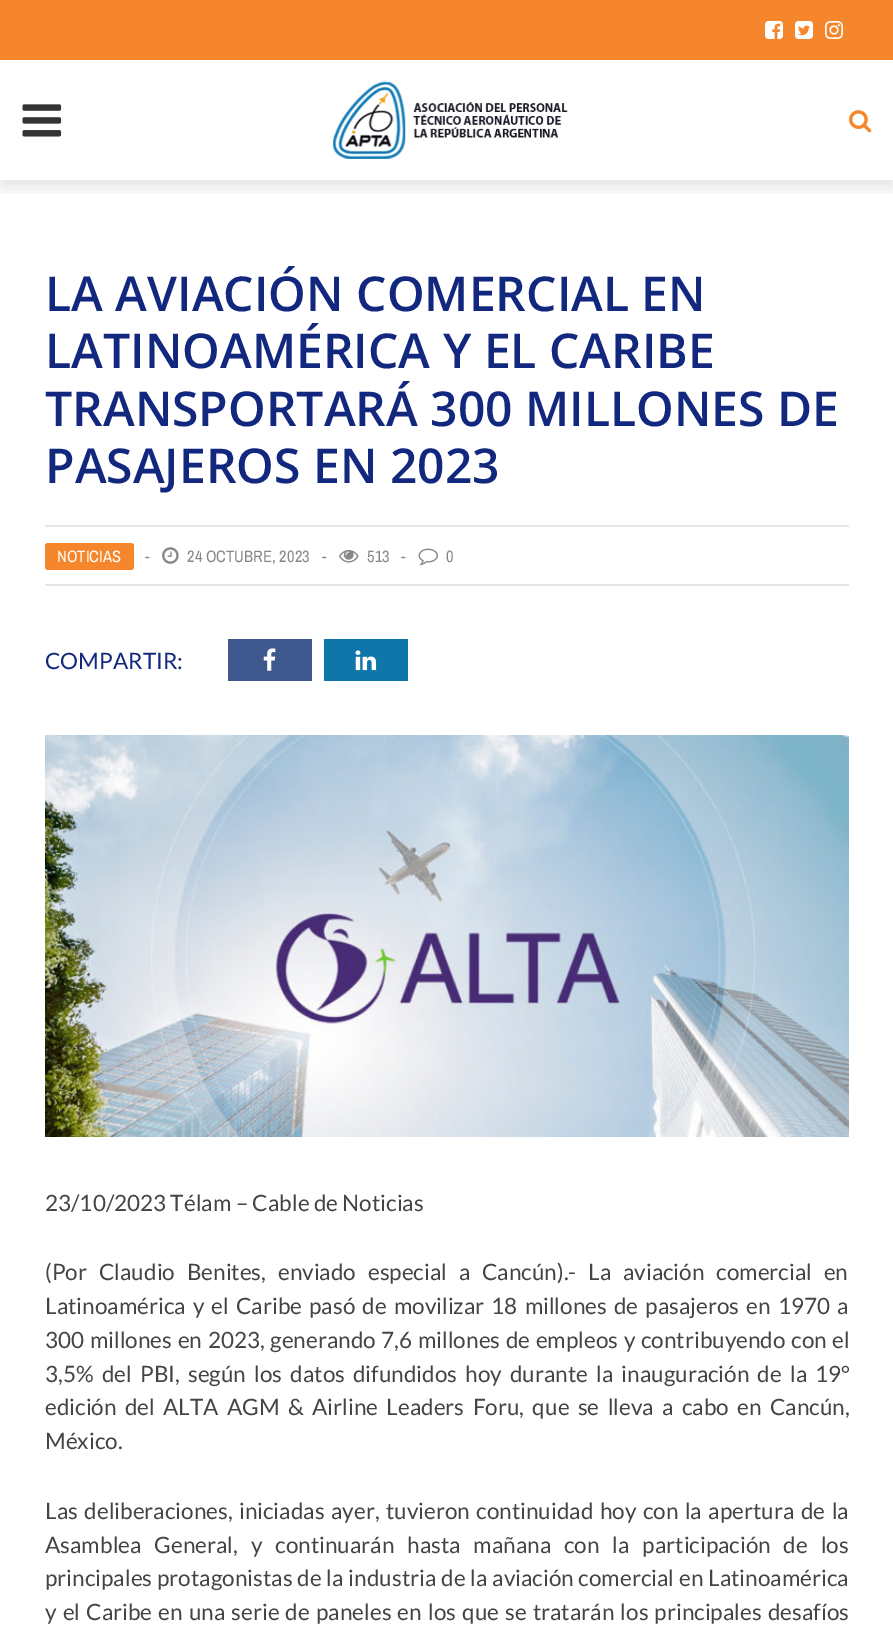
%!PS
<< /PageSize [893 1643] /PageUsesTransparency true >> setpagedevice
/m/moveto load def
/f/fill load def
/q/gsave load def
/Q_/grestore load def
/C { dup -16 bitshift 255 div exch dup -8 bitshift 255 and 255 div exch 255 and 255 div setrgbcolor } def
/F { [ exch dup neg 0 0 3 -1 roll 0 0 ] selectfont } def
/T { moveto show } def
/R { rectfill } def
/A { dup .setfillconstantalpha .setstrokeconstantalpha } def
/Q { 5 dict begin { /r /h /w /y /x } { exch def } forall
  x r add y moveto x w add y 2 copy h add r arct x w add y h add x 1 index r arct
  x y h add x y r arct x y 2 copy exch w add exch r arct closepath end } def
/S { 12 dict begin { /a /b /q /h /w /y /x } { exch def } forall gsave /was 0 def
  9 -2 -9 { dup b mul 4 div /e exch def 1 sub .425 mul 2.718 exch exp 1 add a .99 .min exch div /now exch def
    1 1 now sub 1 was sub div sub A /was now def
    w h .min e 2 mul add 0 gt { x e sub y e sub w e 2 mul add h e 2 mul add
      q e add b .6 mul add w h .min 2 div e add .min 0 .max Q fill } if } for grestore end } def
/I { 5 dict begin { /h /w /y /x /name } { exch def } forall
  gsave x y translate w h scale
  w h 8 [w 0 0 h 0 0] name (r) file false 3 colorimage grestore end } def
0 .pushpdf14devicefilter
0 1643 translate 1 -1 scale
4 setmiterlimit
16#FFFFFF C
0 0 893 1643 R
16#F5862C C
0 0 893 60 R
(1.rgb) 765 21 18 18 I
(2.rgb) 795 21 18 18 I
(3.rgb) 825 21 18 18 I
q
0 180 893 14 rectclip
16#000000 C
0 68 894 120 0 7.5 .1 S
Q_
(4.rgb) 22 104 40 33 I
(5.rgb) 333 81 235 78 I
(6.rgb) 849 110 23 23 I
/OpenSans-SemiBold 48 F
16#12277E C
(LA AVIACIÓN COMERCIAL EN) 45 311 T
(LATINOAMÉRICA Y EL CARIBE) 45 368 T
(TRANSPORTARÁ 300 MILLONES DE) 45 426 T
(PASAJEROS EN 2023) 45 483 T
16#E6E6E6 C
45 525 804 2 R
45 584 804 2 R
16#F5862C C
45 543 89 27 3 Q f
/ArchivoNarrow-Regular 16.5 F
16#FFFFFF C
(NOTICIAS) 57 562 T
16#888888 C
(-) 145 562 T
(7.rgb) 162 547 17 17 I
(24 OCTUBRE, 2023) 187 562 T
(-) 322 562 T
(8.rgb) 339 550 20 13 I
(513) 367 562 T
(-) 401 562 T
(9.rgb) 418 548 20 18 I
(0) 446 562 T
/Lato-Regular 22.5 F
16#12277E C
(COMPARTIR:) 45 669 T
16#3E578C C
228 639 84 42 R
(10.rgb) 263 648 13 23 I
16#0E76A8 C
324 639 84 42 R
(11.rgb) 355 650 22 21 I
(12.rgb) 45 735 804 402 I
16#444444 C
(23/10/2023 Télam – Cable de Noticias) 45 1211 T
45 1280 m 7.5 0 32 (\(Por Claudio Benites, enviado especial a Cancún\).- La aviación comercial en) widthshow
45 1314 m 2.75 0 32 (Latinoamérica y el Caribe pasó de movilizar 18 millones de pasajeros en 1970 a) widthshow
45 1348 m 1.25 0 32 (300 millones en 2023, generando 7,6 millones de empleos y contribuyendo con el) widthshow
45 1382 m 3.75 0 32 (3,5% del PBI, según los datos difundidos hoy durante la inauguración de la 19°) widthshow
45 1415 m 4 0 32 (edición del ALTA AGM & Airline Leaders Foru, que se lleva a cabo en Cancún,) widthshow
(México.) 45 1449 T
45 1519 m 2.1 0 32 (Las deliberaciones, iniciadas ayer, tuvieron continuidad hoy con la apertura de la) widthshow
45 1553 m 8.5 0 32 (Asamblea General, y continuarán hasta mañana con la participación de los) widthshow
45 1586 m .5 0 32 (principales protagonistas de la industria de la aviación comercial en Latinoamérica) widthshow
45 1620 m 1.75 0 32 (y el Caribe en una serie de paneles en los que se tratarán los principales desafíos) widthshow
.poppdf14devicefilter showpage
